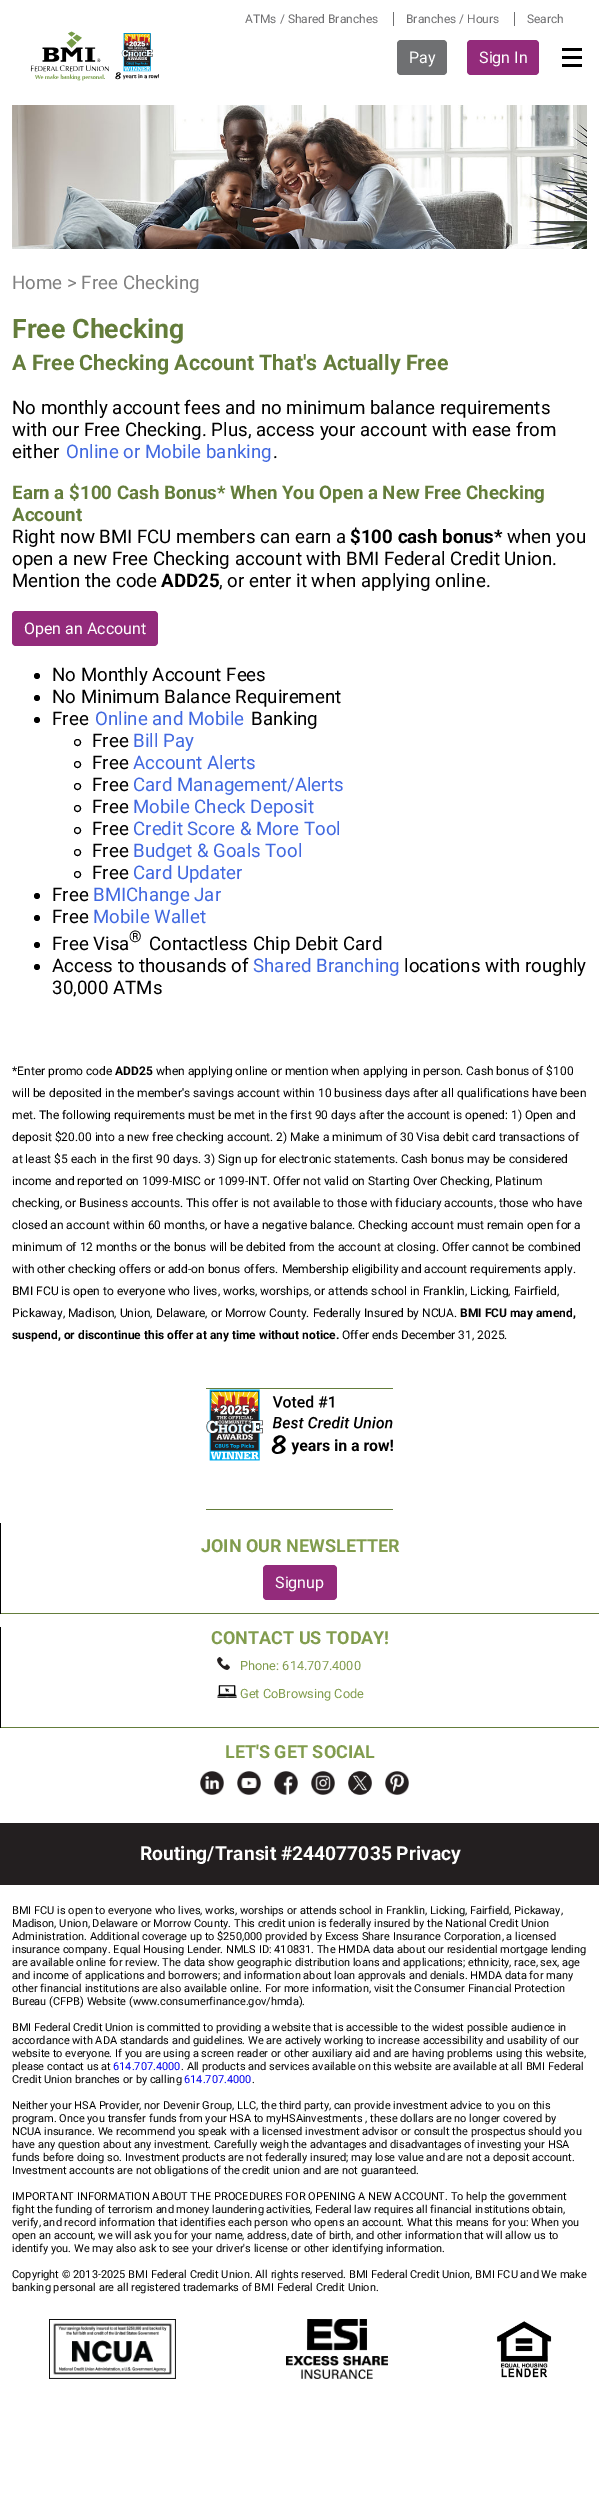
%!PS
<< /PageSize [599 2508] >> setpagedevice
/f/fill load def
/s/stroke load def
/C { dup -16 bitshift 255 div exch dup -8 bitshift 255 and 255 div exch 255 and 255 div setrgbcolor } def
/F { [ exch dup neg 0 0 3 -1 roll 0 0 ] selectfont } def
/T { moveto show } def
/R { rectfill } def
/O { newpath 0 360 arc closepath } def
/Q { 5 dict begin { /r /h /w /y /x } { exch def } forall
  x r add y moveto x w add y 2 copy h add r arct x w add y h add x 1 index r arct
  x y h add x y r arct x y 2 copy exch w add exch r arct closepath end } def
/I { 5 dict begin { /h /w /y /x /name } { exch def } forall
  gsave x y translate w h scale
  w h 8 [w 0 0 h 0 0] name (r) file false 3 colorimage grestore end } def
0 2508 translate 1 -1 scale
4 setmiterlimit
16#FFFFFF C
0 0 599 2508 R
/Roboto-Regular 12 F
16#6F6F71 C
(ATMs / Shared Branches) 245 23 T
(Branches / Hours) 406 23 T
393 12 1 14 R
(Search) 527 23 T
514 12 1 14 R
(1.rgb) 30 31 129 50 I
16#6F7072 C
397 40 50 35 4 Q f
/Roboto-Regular 16 F
16#FFFFFF C
(Pay) 409 63 T
16#932B7B C
467 40 72 35 4 Q f
16#FFFFFF C
(Sign In) 479 63 T
16#000000 C
562 48 20 3 R
562 64 20 3 R
562 56 20 3 R
(2.rgb) 12 105 575 144 I
/Roboto-Regular 18.7 F
16#808080 C
(Home > Free Checking) 12 289 T
/Roboto-Bold 26.75 F
16#647D3B C
(Free Checking) 12 338 T
/Roboto-Bold 21.3 F
(A Free Checking Account That's Actually Free) 12 370 T
/Roboto-Regular 18.7 F
16#000000 C
(No monthly account fees and no minimum balance requirements) 12 414 T
(with our Free Checking. Plus, access your account with ease from) 12 436 T
(either) 12 458 T
16#4169E1 C
(Online or Mobile banking) 66 458 T
16#000000 C
(.) 273 458 T
/Roboto-Bold 18.7 F
16#647D3B C
(Earn a $100 Cash Bonus* When You Open a New Free Checking) 12 499 T
(Account) 12 521 T
/Roboto-Regular 18.7 F
16#000000 C
(Right now BMI FCU members can earn a) 12 543 T
/Roboto-Bold 18.7 F
($100 cash bonus*) 350 543 T
/Roboto-Regular 18.7 F
(when you) 507 543 T
(open a new Free Checking account with BMI Federal Credit Union.) 12 565 T
(Mention the code) 12 587 T
/Roboto-Bold 18.7 F
(ADD25) 161 587 T
/Roboto-Regular 18.7 F
(, or enter it when applying online.) 219 587 T
16#932B7B C
12 611 146 35 4 Q f
/Roboto-Regular 16 F
16#FFFFFF C
(Open an Account) 24 634 T
16#000000 C
37 676 3 O f
/Roboto-Regular 18.7 F
(No Monthly Account Fees) 52 681 T
37 698 3 O f
(No Minimum Balance Requirement) 52 703 T
37 720 3 O f
(Free) 52 725 T
16#4169E1 C
(Online and Mobile) 95 725 T
16#000000 C
(Banking) 251 725 T
77.5 742.5 3 O s
(Free) 92 747 T
16#4169E1 C
(Bill Pay) 133 747 T
16#000000 C
77.5 764.5 3 O s
(Free) 92 769 T
16#4169E1 C
(Account Alerts) 133 769 T
16#000000 C
77.5 786.5 3 O s
(Free) 92 791 T
16#4169E1 C
(Card Management/Alerts) 133 791 T
16#000000 C
77.5 808.5 3 O s
(Free) 92 813 T
16#4169E1 C
(Mobile Check Deposit) 133 813 T
16#000000 C
77.5 830.5 3 O s
(Free) 92 835 T
16#4169E1 C
(Credit Score & More Tool) 133 835 T
16#000000 C
77.5 852.5 3 O s
(Free) 92 857 T
16#4169E1 C
(Budget & Goals Tool) 133 857 T
16#000000 C
77.5 874.5 3 O s
(Free) 92 879 T
16#4169E1 C
(Card Updater) 133 879 T
16#000000 C
37 896 3 O f
(Free) 52 901 T
16#4169E1 C
(BMIChange Jar) 93 901 T
16#000000 C
37 918 3 O f
(Free) 52 923 T
16#4169E1 C
(Mobile Wallet) 93 923 T
16#000000 C
37 945 3 O f
(Free Visa) 52 950 T
/Roboto-Regular 16 F
(®) 129 942 T
/Roboto-Regular 18.7 F
(Contactless Chip Debit Card) 149 950 T
37 967 3 O f
(Access to thousands of) 52 972 T
16#4169E1 C
(Shared Branching) 253 972 T
16#000000 C
(locations with roughly) 404 972 T
(30,000 ATMs) 52 994 T
/Roboto-Regular 12 F
(*Enter promo code) 12 1075 T
/Roboto-Bold 12 F
(ADD25) 115 1075 T
/Roboto-Regular 12 F
(when applying online or mention when applying in person. Cash bonus of $100) 156 1075 T
(will be deposited in the member's savings account within 10 business days after all qualifications have been) 12 1097 T
(met. The following requirements must be met in the first 90 days after the account is opened: 1\) Open and) 12 1119 T
(deposit $20.00 into a new free checking account. 2\) Make a minimum of 30 Visa debit card transactions of) 12 1141 T
(at least $5 each in the first 90 days. 3\) Sign up for electronic statements. Cash bonus may be considered) 12 1163 T
(income and reported on 1099-MISC or 1099-INT. Offer not valid on Starting Over Checking, Platinum) 12 1185 T
(checking, or Business accounts. This offer is not available to those with fiduciary accounts, those who have) 12 1207 T
(closed an account within 60 months, or have a negative balance. Checking account must remain open for a) 12 1229 T
(minimum of 12 months or the bonus will be debited from the account at closing. Offer cannot be combined) 12 1251 T
(with other checking offers or add-on bonus offers. Membership eligibility and account requirements apply.) 12 1273 T
(BMI FCU is open to everyone who lives, works, worships, or attends school in Franklin, Licking, Fairfield,) 12 1295 T
(Pickaway, Madison, Union, Delaware, or Morrow County. Federally Insured by NCUA.) 12 1317 T
/Roboto-Bold 12 F
(BMI FCU may amend,) 460 1317 T
(suspend, or discontinue this offer at any time without notice.) 12 1339 T
/Roboto-Regular 12 F
(Offer ends December 31, 2025.) 342 1339 T
16#647D3B C
206 1388 187 1 R
206 1509 187 1 R
(3.rgb) 206 1389 187 72 I
0 1613 599 1 R
16#000000 C
0 1523 1 91 R
/Roboto-Bold 18 F
16#819C4D C
(JOIN OUR NEWSLETTER) 201 1552 T
16#932B7B C
263 1565 74 35 4 Q f
/Roboto-Regular 16 F
16#FFFFFF C
(Signup) 275 1588 T
16#647D3B C
0 1727 599 1 R
16#000000 C
0 1627 1 101 R
/Roboto-Bold 18 F
16#819C4D C
(CONTACT US TODAY!) 211 1644 T
(4.rgb) 217 1657 13 13 I
/Roboto-Regular 12.75 F
(Phone: 614.707.4000) 240 1670 T
(5.rgb) 217 1685 20 13 I
(Get CoBrowsing Code) 240 1698 T
/Roboto-Bold 18 F
(LET'S GET SOCIAL) 225 1758 T
(6.rgb) 200 1771 24 24 I
(7.rgb) 237 1771 24 24 I
(8.rgb) 274 1771 24 24 I
(9.rgb) 311 1771 24 24 I
(10.rgb) 348 1771 24 24 I
(11.rgb) 385 1771 24 24 I
16#231F20 C
0 1823 599 62 R
/Roboto-Bold 19.25 F
16#FFFFFF C
(Routing/Transit #244077035 Privacy) 140 1860 T
/Roboto-Regular 11 F
16#000000 C
(BMI FCU is open to everyone who lives, works, worships or attends school in Franklin, Licking, Fairfield, Pickaway,) 12 1914 T
(Madison, Union, Delaware or Morrow County. This credit union is federally insured by the National Credit Union) 12 1927 T
(Administration. Additional coverage up to $250,000 provided by Excess Share Insurance Corporation, a licensed) 12 1940 T
(insurance company. Equal Housing Lender. NMLS ID: 410831. The HMDA data about our residential mortgage lending) 12 1953 T
(are available online for review. The data show geographic distribution loans and applications; ethnicity, race, sex, age) 12 1966 T
(and income of applications and borrowers; and information about loan approvals and denials. HMDA data for many) 12 1979 T
(other financial institutions are also available online. For more information, visit the Consumer Financial Protection) 12 1992 T
(Bureau \(CFPB\) Website \(www.consumerfinance.gov/hmda\).) 12 2005 T
(BMI Federal Credit Union is committed to providing a website that is accessible to the widest possible audience in) 12 2031 T
(accordance with ADA standards and guidelines. We are actively working to increase accessibility and usability of our) 12 2044 T
(website to everyone. If you are using a screen reader or other auxiliary aid and are having problems using this website,) 12 2057 T
(please contact us at) 12 2070 T
16#0000EE C
(614.707.4000) 113 2070 T
16#000000 C
(. All products and services available on this website are available at all BMI Federal) 181 2070 T
(Credit Union branches or by calling) 12 2083 T
16#0000EE C
(614.707.4000) 184 2083 T
16#000000 C
(.) 252 2083 T
(Neither your HSA Provider, nor Devenir Group, LLC, the third party, can provide investment advice to you on this) 12 2109 T
(program. Once you transfer funds from your HSA to myHSAinvestments , these dollars are no longer covered by) 12 2122 T
(NCUA insurance. We recommend you speak with a licensed investment advisor or consult the prospectus should you) 12 2135 T
(have any question about any investment. Carefully weigh the advantages and disadvantages of investing your HSA) 12 2148 T
(funds before doing so. Investment products are not federally insured; may lose value and are not a deposit account.) 12 2161 T
(Investment accounts are not obligations of the credit union and are not guaranteed.) 12 2174 T
(IMPORTANT INFORMATION ABOUT THE PROCEDURES FOR OPENING A NEW ACCOUNT. To help the government) 12 2200 T
(fight the funding of terrorism and money laundering activities, Federal law requires all financial institutions obtain,) 12 2213 T
(verify, and record information that identifies each person who opens an account. What this means for you: When you) 12 2226 T
(open an account, we will ask you for your name, address, date of birth, and other information that will allow us to) 12 2239 T
(identify you. We may also ask to see your driver's license or other identifying information.) 12 2252 T
(Copyright © 2013-2025 BMI Federal Credit Union. All rights reserved. BMI Federal Credit Union, BMI FCU and We make) 12 2278 T
(banking personal are all registered trademarks of BMI Federal Credit Union.) 12 2291 T
(12.rgb) 49 2319 127 60 I
(13.rgb) 286 2319 102 60 I
(14.rgb) 497 2321 55 57 I
showpage
